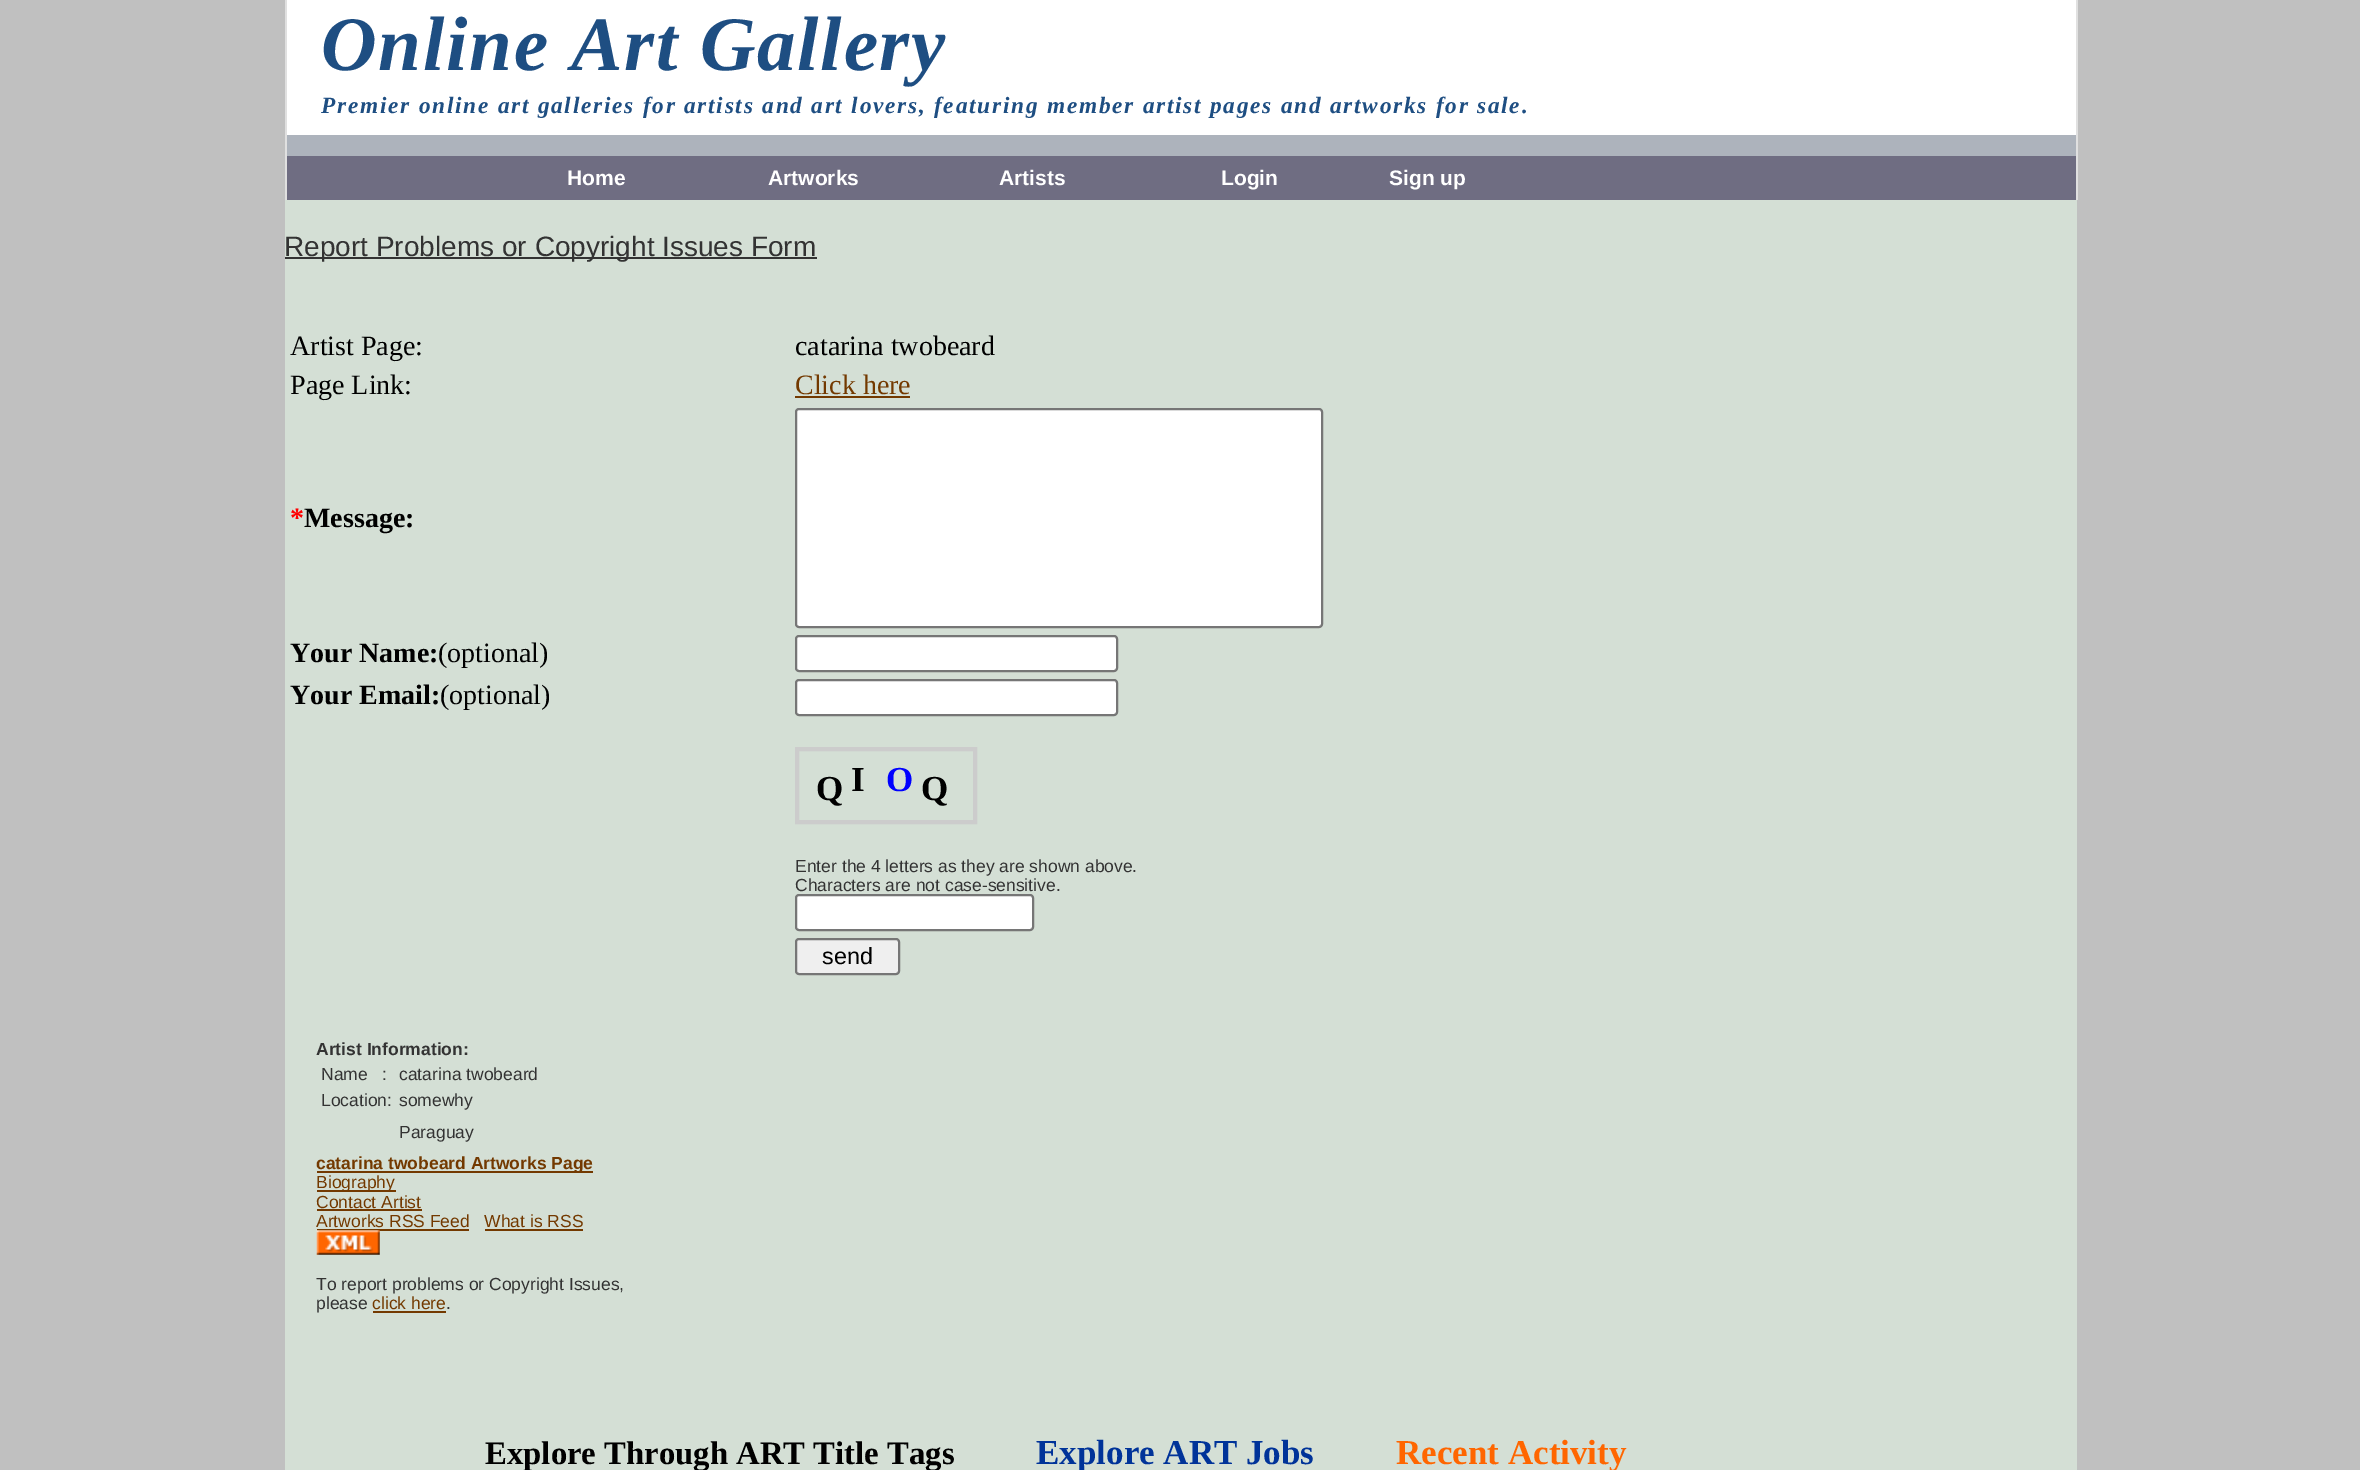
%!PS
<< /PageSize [2360 1470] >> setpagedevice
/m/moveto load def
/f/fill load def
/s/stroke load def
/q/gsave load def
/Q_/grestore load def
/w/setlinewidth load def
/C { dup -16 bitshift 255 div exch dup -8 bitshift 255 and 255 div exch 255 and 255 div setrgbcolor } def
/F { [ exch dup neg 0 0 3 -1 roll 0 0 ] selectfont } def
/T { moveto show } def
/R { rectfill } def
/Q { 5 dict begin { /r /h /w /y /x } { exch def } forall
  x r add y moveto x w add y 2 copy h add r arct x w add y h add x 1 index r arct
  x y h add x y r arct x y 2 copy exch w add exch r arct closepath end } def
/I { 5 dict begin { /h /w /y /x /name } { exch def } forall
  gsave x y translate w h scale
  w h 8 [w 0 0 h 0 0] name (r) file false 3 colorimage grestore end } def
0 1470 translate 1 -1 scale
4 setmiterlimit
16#C0C0C0 C
0 0 2360 1470 R
16#FFFFFF C
287 0 1789 135 R
16#E0E0E0 C
285 0 2 200 R
/LiberationSerif-BoldItalic 77 F
16#1E4E82 C
321 70 m 1.75 0 (Online Art Gallery) ashow
/LiberationSerif-BoldItalic 23.33 F
321 113 m 1.75 0 (Premier online art galleries for artists and art lovers, featuring member artist pages and artworks for sale.) ashow
16#ADB3BC C
287 135 1789 21 R
16#6F6D82 C
287 156 1789 44 R
/LiberationSans-Bold 21 F
16#FFFFFF C
(Home) 567 185 T
(Artworks) 768 185 T
(Artists) 999 185 T
(Login) 1221 185 T
(Sign up) 1389 185 T
16#E0E0E0 C
2076 0 2 200 R
16#D4DFD5 C
285 200 1792 1270 R
16#333333 C
285 257 532 2 R
/LiberationSans-Regular 28 F
(Report Problems or Copyright Issues Form) 284 256 T
/LiberationSerif-Regular 28 F
16#000000 C
(Artist Page:) 290 355 T
(catarina twobeard) 795 355 T
(Page Link:) 290 394 T
16#733900 C
(Click here) 795 394 T
795 396 115 2 R
/LiberationSerif-Bold 28 F
16#FF0000 C
(*) 290 527 T
16#000000 C
(Message:) 304 527 T
16#FFFFFF C
796 409 526 218 3 Q q f Q_
16#767676 C
2 w
s
16#000000 C
(Your Name:) 290 662 T
/LiberationSerif-Regular 28 F
(\(optional\)) 438 662 T
16#FFFFFF C
796 636 321 35 3 Q q f Q_
16#767676 C
s
/LiberationSerif-Bold 28 F
16#000000 C
(Your Email:) 290 704 T
/LiberationSerif-Regular 28 F
(\(optional\)) 440 704 T
16#FFFFFF C
796 680 321 35 3 Q q f Q_
16#767676 C
s
16#CCCCCC C
4 w
797 749 178 73 rectstroke
/LiberationSerif-Bold 35 F
16#000000 C
(Q) 816 800 T
(I) 851 791 T
16#0000FF C
(O) 886 791 T
16#000000 C
(Q) 921 800 T
/LiberationSans-Regular 17.5 F
16#333333 C
(Enter the 4 letters as they are shown above.) 795 872 T
(Characters are not case-sensitive.) 795 891 T
16#FFFFFF C
796 895 237 35 3 Q q f Q_
16#767676 C
2 w
s
16#EFEFEF C
796 939 103 35 3 Q q f Q_
16#767676 C
s
/LiberationSans-Regular 23.33 F
16#000000 C
(send) 822 964 T
/LiberationSans-Bold 17.5 F
16#333333 C
(Artist Information:) 316 1055 T
/LiberationSans-Regular 17.5 F
(Name   :) 321 1080 T
(catarina twobeard) 399 1080 T
(Location:) 321 1106 T
(somewhy) 399 1106 T
(Paraguay) 399 1138 T
16#733900 C
317 1171 276 2 R
/LiberationSans-Bold 17.5 F
(catarina twobeard Artworks Page) 316 1169 T
317 1190 79 2 R
/LiberationSans-Regular 17.5 F
(Biography) 316 1188 T
(Contact Artist) 316 1208 T
317 1209 105 2 R
(Artworks RSS Feed) 316 1227 T
317 1229 152 2 R
(What is RSS) 484 1227 T
485 1229 98 2 R
(1.rgb) 316 1230 64 25 I
16#333333 C
(To report problems or Copyright Issues,) 316 1290 T
(please) 316 1309 T
16#733900 C
(click here) 372 1309 T
16#333333 C
(.) 446 1309 T
16#733900 C
373 1311 73 2 R
/LiberationSerif-Bold 32.75 F
16#000000 C
(Explore Through ART Title Tags) 485 1464 T
/LiberationSerif-Bold 35 F
16#003399 C
(Explore ART Jobs) 1036 1464 T
16#FF6600 C
(Recent Activity) 1396 1464 T
showpage
